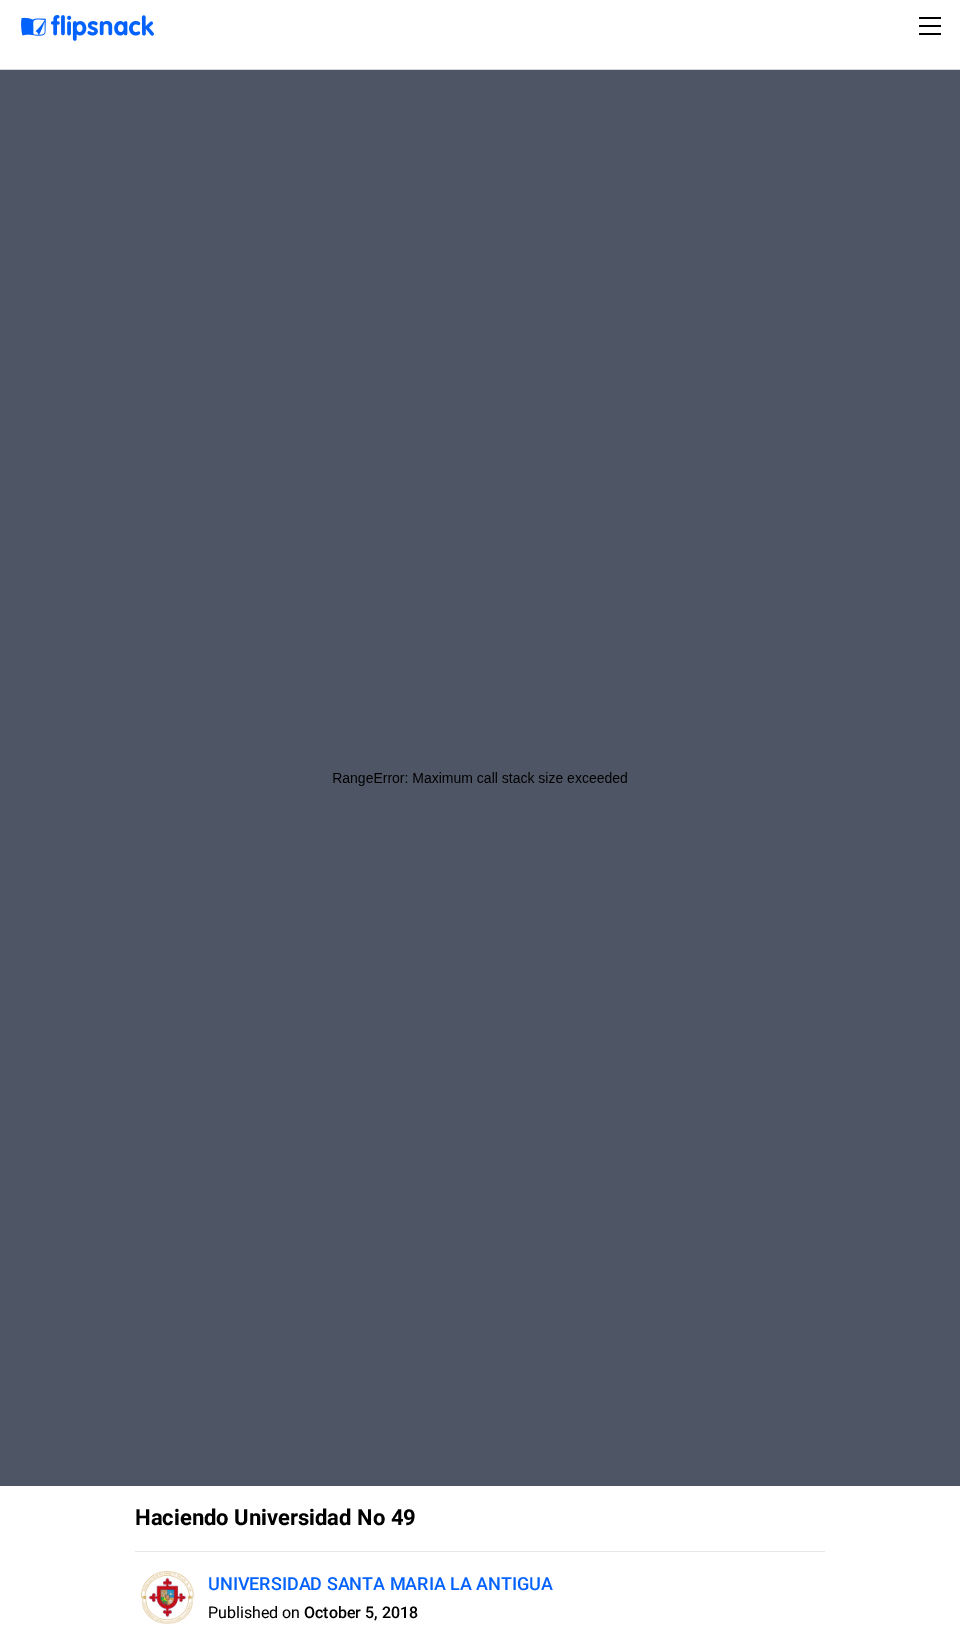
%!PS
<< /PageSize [960 1630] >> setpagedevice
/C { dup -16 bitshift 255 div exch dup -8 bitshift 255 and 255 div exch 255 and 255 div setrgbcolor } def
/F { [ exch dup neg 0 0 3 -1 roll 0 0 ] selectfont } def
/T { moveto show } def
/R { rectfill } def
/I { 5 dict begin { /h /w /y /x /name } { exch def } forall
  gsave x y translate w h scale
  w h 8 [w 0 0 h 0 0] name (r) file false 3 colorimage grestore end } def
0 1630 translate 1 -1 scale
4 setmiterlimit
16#FFFFFF C
0 0 960 1630 R
16#D5D5D5 C
0 69 960 1 R
(1.rgb) 21 15 133 26 I
16#000000 C
919 17 22 2 R
919 25 22 2 R
919 33 22 2 R
16#4E5565 C
0 70 960 1416 R
(2.rgb) 333 772 294 14 I
/Roboto-Bold 22 F
16#000000 C
(Haciendo Universidad No 49) 135 1525 T
16#E6E6E6 C
135 1551 690 1 R
(3.rgb) 140 1570 55 55 I
/Roboto-Medium 18 F
16#0362FC C
(UNIVERSIDAD SANTA MARIA LA ANTIGUA) 208 1590 T
/Roboto-Regular 16 F
16#000000 C
(Published on) 208 1618 T
/Roboto-Medium 16 F
(October 5, 2018) 304 1618 T
showpage
